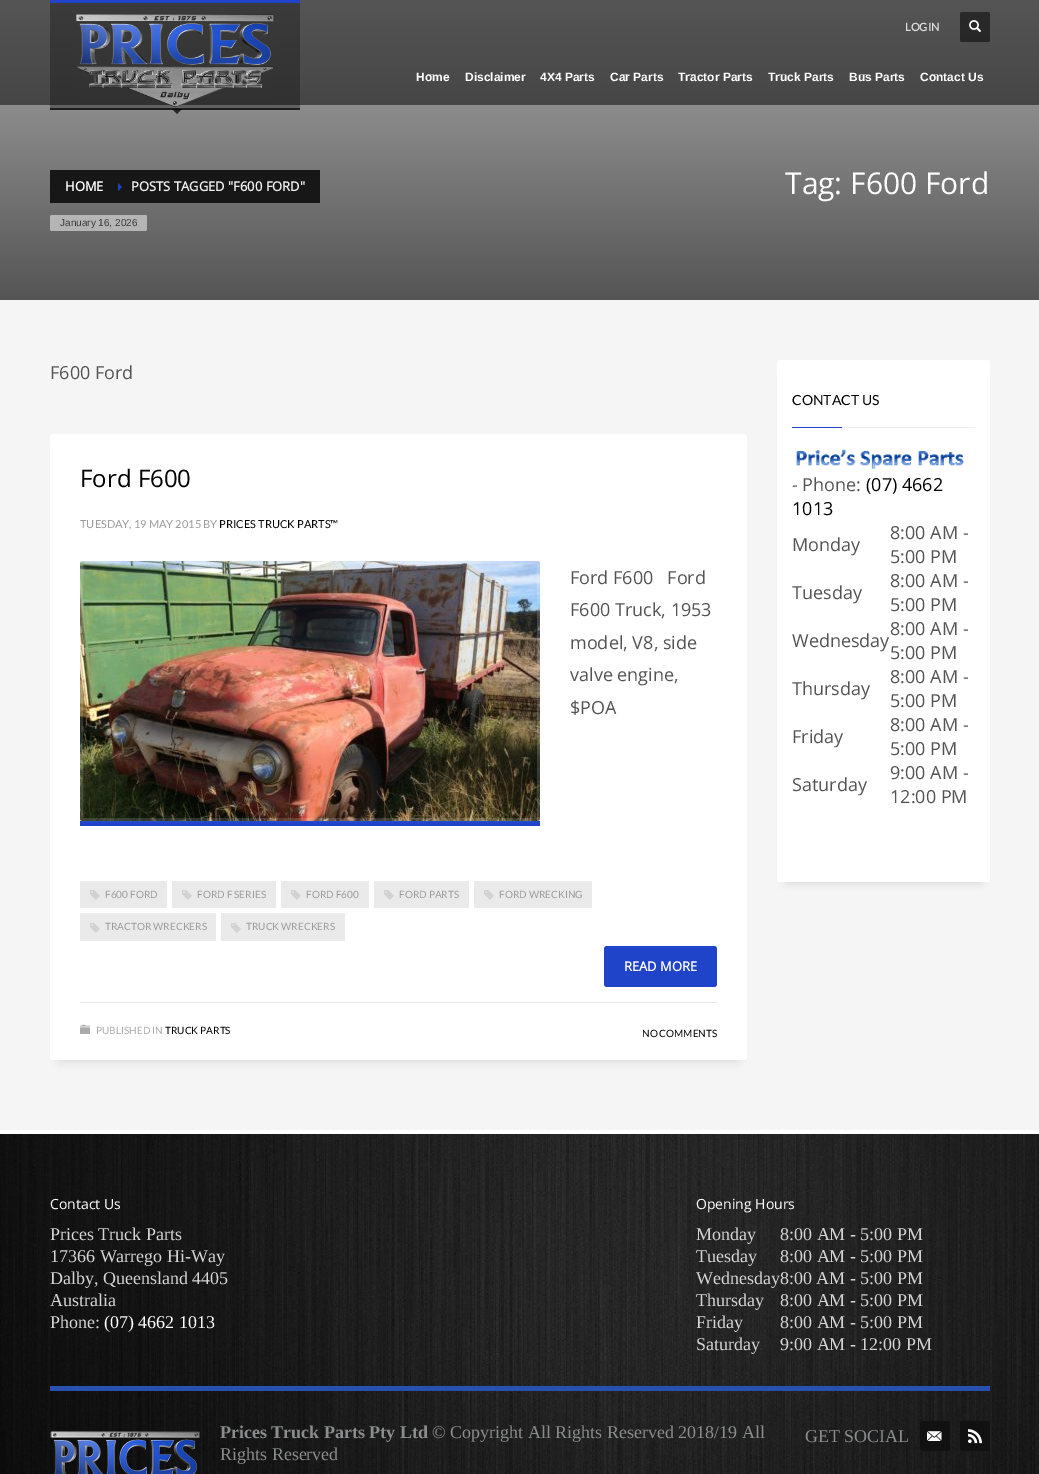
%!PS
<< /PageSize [1039 1474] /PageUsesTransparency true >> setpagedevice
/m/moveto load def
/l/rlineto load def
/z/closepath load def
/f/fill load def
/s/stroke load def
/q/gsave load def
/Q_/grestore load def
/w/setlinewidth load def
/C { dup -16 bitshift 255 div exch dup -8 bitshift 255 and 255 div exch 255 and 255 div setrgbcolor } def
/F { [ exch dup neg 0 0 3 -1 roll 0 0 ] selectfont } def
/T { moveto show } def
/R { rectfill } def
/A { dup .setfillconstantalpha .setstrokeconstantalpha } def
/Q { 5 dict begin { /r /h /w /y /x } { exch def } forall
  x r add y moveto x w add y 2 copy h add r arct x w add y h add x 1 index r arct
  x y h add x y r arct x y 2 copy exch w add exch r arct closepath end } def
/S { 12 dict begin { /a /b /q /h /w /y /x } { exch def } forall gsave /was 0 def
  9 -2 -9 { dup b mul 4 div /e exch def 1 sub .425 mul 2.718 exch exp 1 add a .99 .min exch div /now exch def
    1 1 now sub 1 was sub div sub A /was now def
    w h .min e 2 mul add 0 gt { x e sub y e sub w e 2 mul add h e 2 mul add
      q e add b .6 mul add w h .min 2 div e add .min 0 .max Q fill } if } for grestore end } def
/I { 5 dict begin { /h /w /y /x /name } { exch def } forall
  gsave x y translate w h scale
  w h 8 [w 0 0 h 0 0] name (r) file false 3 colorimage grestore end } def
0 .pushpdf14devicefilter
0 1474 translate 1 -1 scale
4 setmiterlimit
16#F5F5F5 C
0 0 1039 1474 R
q 0 0 m 1039 0 l 0 105 l -1039 0 l z clip newpath
<< /ShadingType 2 /ColorSpace /DeviceRGB /Coords [520 0 520 300] /Extend [true true] /Function << /FunctionType 2 /Domain [0 1] /C0 [.333 .333 .333] /C1 [.169 .169 .169] /N 1 >> >> shfill Q_
16#2044C9 C
50 0 250 3 R
q 0 105 m 1039 0 l 0 195 l -1039 0 l z clip newpath
<< /ShadingType 2 /ColorSpace /DeviceRGB /Coords [520 0 520 300] /Extend [true true] /Function << /FunctionType 2 /Domain [0 1] /C0 [.663 .663 .663] /C1 [.333 .333 .333] /N 1 >> >> shfill Q_
16#1D1D1D C
50 108 250 2 R
q 50 105 m 250 0 l 0 3 l -250 0 l z clip newpath
<< /ShadingType 2 /ColorSpace /DeviceRGB /Coords [520 0 520 300] /Extend [true true] /Function << /FunctionType 2 /Domain [0 1] /C0 [.463 .463 .463] /C1 [.231 .231 .231] /N 1 >> >> shfill Q_
q 50 3 m 250 0 l 0 102 l -250 0 l z clip newpath
<< /ShadingType 2 /ColorSpace /DeviceRGB /Coords [520 0 520 300] /Extend [true true] /Function << /FunctionType 2 /Domain [0 1] /C0 [.231 .231 .231] /C1 [.118 .118 .118] /N 1 >> >> shfill Q_
(1.rgb) 76 14 199 93 I
0.7 A
16#000000 C
172 109 m 10 0 l -5 5 l z f
/Lato-Bold 11 F
1 A
16#DCDCDC C
(LOGIN) 905 31 T
0.5 A
16#000000 C
960 12 30 30 2 Q f
1 A
(2.rgb) 969 20 12 12 I
/LiberationSans-Bold 12 F
16#FFFFFF C
(Home) 416 81 T
0.4 A
427 74 7 1 R
1 A
(Disclaimer) 465 81 T
(4X4 Parts) 540 81 T
0.4 A
551 74 7 1 R
1 A
(Car Parts) 610 81 T
0.4 A
621 74 7 1 R
1 A
(Tractor Parts) 678 81 T
0.4 A
689 74 7 1 R
1 A
(Truck Parts) 768 81 T
0.4 A
779 74 7 1 R
1 A
(Bus Parts) 849 81 T
0.4 A
860 74 7 1 R
1 A
(Contact Us) 920 81 T
0.4 A
931 74 7 1 R
1 A
q 108 170 m 212 0 l 0 33 l -212 0 l z clip newpath
<< /ShadingType 2 /ColorSpace /DeviceRGB /Coords [520 0 520 300] /Extend [true true] /Function << /FunctionType 2 /Domain [0 1] /C0 [.133 .133 .133] /C1 [.067 .067 .067] /N 1 >> >> shfill Q_
q 50 170 m 58 0 l 0 33 l -58 0 l z clip newpath
<< /ShadingType 2 /ColorSpace /DeviceRGB /Coords [520 0 520 300] /Extend [true true] /Function << /FunctionType 2 /Domain [0 1] /C0 [.133 .133 .133] /C1 [.067 .067 .067] /N 1 >> >> shfill Q_
/OpenSans-Bold 13 F
(HOME) 65 191 T
16#2044C9 C
118 191 m 0 -8 l 4 4 l z f
16#EEEEEE C
(POSTS TAGGED "F600 FORD") 131 191 T
0.5 A
16#FFFFFF C
50 215 97 16 2 Q f
/LiberationSans-Regular 10 F
1 A
16#383838 C
(January 16, 2026) 60 226 T
/OpenSans-Regular 30 F
16#FFFFFF C
(Tag: F600 Ford) 785 194 T
/OpenSans-Regular 18 F
16#535353 C
(F600 Ford) 50 379 T
16#000000 C
60 454 677 606 0 5 .15 S
16#FFFFFF C
50 434 697 626 3 Q f
/OpenSans-Regular 24 F
16#000000 C
(Ford F600) 80 487 T
/Lato-Regular 11 F
16#9B9B9B C
(TUESDAY, 19 MAY 2015 BY) 80 528 T
16#000000 C
(PRICES TRUCK PARTS™) 219 528 T
16#2044C9 C
80 821 460 5 R
(3.rgb) 80 561 460 260 I
0.15 A
16#FFFFFF C
3 w
81.5 562.5 457 257 1.5 Q s
/OpenSans-Regular 18 F
1 A
16#535353 C
(Ford F600   Ford) 570 584 T
(F600 Truck, 1953) 570 616 T
(model, V8, side) 570 649 T
(valve engine,) 570 681 T
($POA) 570 714 T
16#E6E6E6 C
80 1002 637 1 R
16#EAEAEA C
80 881 87 27 R
(4.rgb) 90 890 10 10 I
/Lato-Regular 10 F
16#9B9B9B C
(F600 FORD) 105 898 T
16#EAEAEA C
172 881 104 27 R
(4.rgb) 182 890 10 10 I
16#9B9B9B C
(FORD F SERIES) 197 898 T
16#EAEAEA C
281 881 88 27 R
(4.rgb) 291 890 10 10 I
16#9B9B9B C
(FORD F600) 306 898 T
16#EAEAEA C
374 881 95 27 R
(4.rgb) 384 890 10 10 I
16#9B9B9B C
(FORD PARTS) 399 898 T
16#EAEAEA C
474 881 118 27 R
(4.rgb) 484 890 10 10 I
16#9B9B9B C
(FORD WRECKING) 499 898 T
16#EAEAEA C
80 913 136 28 R
(4.rgb) 90 923 10 10 I
16#9B9B9B C
(TRACTOR WRECKERS) 105 930 T
16#EAEAEA C
221 913 124 28 R
(4.rgb) 231 923 10 10 I
16#9B9B9B C
(TRUCK WRECKERS) 246 930 T
16#2044C9 C
604 946 113 41 3 Q f
/OpenSans-Bold 13 F
16#FFFFFF C
(READ MORE) 624 971 T
(5.rgb) 80 1024 10 10 I
/Lato-Regular 10 F
16#AAAAAA C
(PUBLISHED IN) 96 1034 T
16#000000 C
(TRUCK PARTS) 165 1034 T
(NO COMMENTS) 642 1037 T
787 380 193 502 0 5 .15 S
16#FFFFFF C
777 360 213 522 3 Q f
/Lato-Regular 14 F
16#000000 C
(CONTACT US) 792 405 T
16#2044C9 C
792 427 50 1 R
16#ECECEC C
842 427 133 1 R
(6.rgb) 796 449 168 20 I
/OpenSans-Regular 18 F
16#535353 C
(- Phone:) 792 491 T
16#000000 C
(\(07\) 4662) 866 491 T
(1013) 792 515 T
16#535353 C
(Monday) 792 551 T
(8:00 AM -) 890 539 T
(5:00 PM) 890 563 T
(Tuesday) 792 599 T
(8:00 AM -) 890 587 T
(5:00 PM) 890 611 T
(Wednesday) 792 647 T
(8:00 AM -) 890 635 T
(5:00 PM) 890 659 T
(Thursday) 792 695 T
(8:00 AM -) 890 683 T
(5:00 PM) 890 707 T
(Friday) 792 743 T
(8:00 AM -) 890 731 T
(5:00 PM) 890 755 T
(Saturday) 792 791 T
(9:00 AM -) 890 779 T
(12:00 PM) 890 803 T
(7.rgb) 0 1134 1039 340 I
16#FFFFFF C
0 1130 1039 4 R
/OpenSans-Regular 14 F
(Contact Us) 50 1209 T
/LiberationSerif-Regular 18 F
16#D5D5D5 C
(Prices Truck Parts) 50 1240 T
(17366 Warrego Hi-Way) 50 1262 T
(Dalby, Queensland 4405) 50 1284 T
(Australia) 50 1306 T
(Phone:) 50 1328 T
16#FFFFFF C
(\(07\) 4662 1013) 104 1328 T
/OpenSans-Regular 14 F
(Opening Hours) 696 1209 T
/LiberationSerif-Regular 18 F
16#D5D5D5 C
(Monday) 696 1240 T
(8:00 AM - 5:00 PM) 780 1240 T
(Tuesday) 696 1262 T
(8:00 AM - 5:00 PM) 780 1262 T
(Wednesday8:00 AM - 5:00 PM) 696 1284 T
(Thursday) 696 1306 T
(8:00 AM - 5:00 PM) 780 1306 T
(Friday) 696 1328 T
(8:00 AM - 5:00 PM) 780 1328 T
(Saturday) 696 1350 T
(9:00 AM - 12:00 PM) 780 1350 T
16#2851AF C
50 1386 940 5 R
(8.rgb) 50 1431 150 43 I
/LiberationSerif-Bold 18 F
16#8B8C8D C
(Prices Truck Parts Pty Ltd) 220 1438 T
/LiberationSerif-Regular 18 F
(© Copyright All Rights Reserved 2018/19 All) 432 1438 T
(Rights Reserved) 220 1460 T
(GET SOCIAL) 805 1442 T
16#111111 C
920 1421 30 30 3 Q f
(9.rgb) 927 1431 15 10 I
960 1421 30 30 3 Q f
(10.rgb) 968 1429 14 15 I
.poppdf14devicefilter showpage
